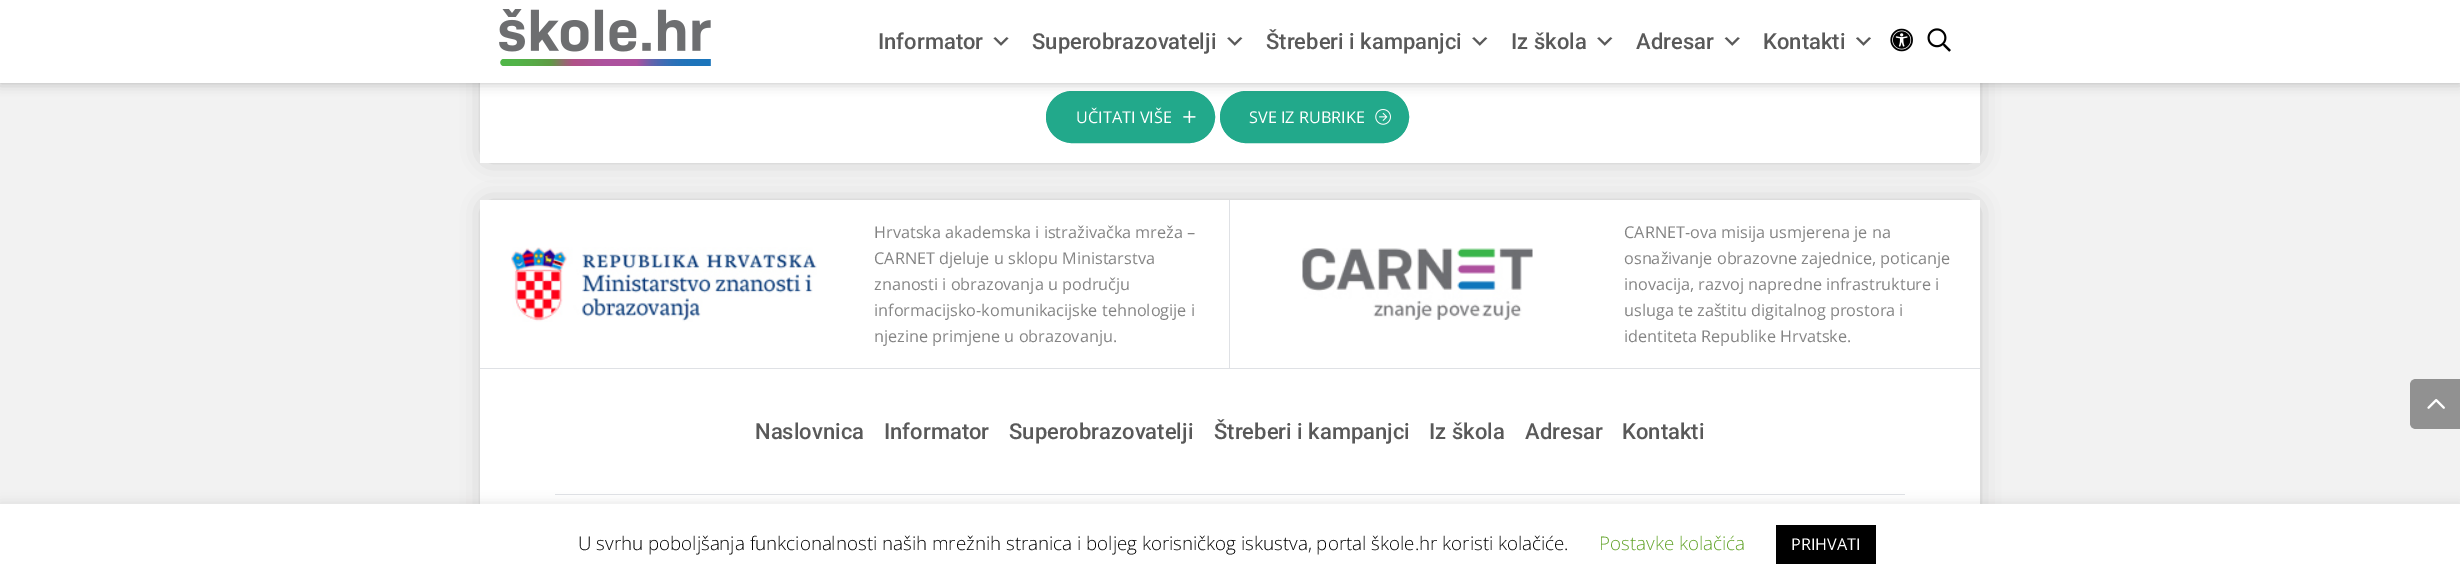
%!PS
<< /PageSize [2460 585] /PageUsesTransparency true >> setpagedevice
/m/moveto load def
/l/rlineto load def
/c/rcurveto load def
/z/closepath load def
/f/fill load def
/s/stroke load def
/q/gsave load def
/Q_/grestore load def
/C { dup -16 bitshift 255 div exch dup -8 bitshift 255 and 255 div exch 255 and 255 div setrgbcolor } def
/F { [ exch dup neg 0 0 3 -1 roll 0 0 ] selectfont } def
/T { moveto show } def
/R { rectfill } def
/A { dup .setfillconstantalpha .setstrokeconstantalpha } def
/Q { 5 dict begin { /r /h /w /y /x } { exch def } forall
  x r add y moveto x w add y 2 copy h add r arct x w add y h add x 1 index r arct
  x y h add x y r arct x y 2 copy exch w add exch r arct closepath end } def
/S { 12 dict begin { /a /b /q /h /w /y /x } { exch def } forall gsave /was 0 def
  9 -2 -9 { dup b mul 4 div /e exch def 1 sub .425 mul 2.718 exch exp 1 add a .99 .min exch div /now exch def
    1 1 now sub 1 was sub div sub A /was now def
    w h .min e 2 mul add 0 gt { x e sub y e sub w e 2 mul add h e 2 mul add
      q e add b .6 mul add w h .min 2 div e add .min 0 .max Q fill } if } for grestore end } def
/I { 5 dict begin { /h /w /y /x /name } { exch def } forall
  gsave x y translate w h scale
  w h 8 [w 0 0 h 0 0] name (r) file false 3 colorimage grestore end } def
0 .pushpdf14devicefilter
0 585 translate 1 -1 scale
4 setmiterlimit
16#F2F2F2 C
0 0 2460 585 R
16#000000 C
488 -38 1485 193 0 12.5 .3 S
16#FFFFFF C
480 83 1500 80 R
16#22A98B C
1046.5 91.5 168 51 25.5 Q q f Q_
s
1220.5 91.5 188 51 25.5 Q q f Q_
s
16#000000 C
0 0 2460 83 0 6 .25 S
16#FFFFFF C
0 0 2460 83 R
(1.rgb) 499 9 212 57 I
/Roboto-Medium 22 F
16#595959 C
(Informator) 878 49 T
(2.rgb) 993 37 16 9 I
(Superobrazovatelji) 1032 49 T
(3.rgb) 1227 37 16 9 I
(Štreberi i kampanjci) 1266 49 T
(3.rgb) 1472 37 16 9 I
(Iz škola) 1511 49 T
(3.rgb) 1597 37 16 9 I
(Adresar) 1636 49 T
(4.rgb) 1724 37 16 9 I
(Kontakti) 1763 49 T
(5.rgb) 1856 37 15 9 I
(6.rgb) 1890 28 23 24 I
(7.rgb) 1927 28 24 24 I
/OpenSans-Regular 16.25 F
16#FFFFFF C
(UČITATI VIŠE) 1076 123 T
(8.rgb) 1183 110 13 13 I
(SVE IZ RUBRIKE) 1249 123 T
(9.rgb) 1375 109 16 16 I
16#000000 C
488 208 1485 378 0 12.5 .3 S
16#FFFFFF C
480 200 1500 304 R
16#DFE1E5 C
480 368 1500 1 R
(10.rgb) 511 247 306 75 I
1229 200 1 168 R
16#848484 C
(Hrvatska akademska i istraživačka mreža –) 874 238 T
(CARNET djeluje u sklopu Ministarstva) 874 264 T
(znanosti i obrazovanja u području) 874 290 T
(informacijsko-komunikacijske tehnologije i) 874 316 T
(njezine primjene u obrazovanju.) 874 342 T
(11.rgb) 1302 248 231 72 I
(CARNET-ova misija usmjerena je na) 1624 238 T
(osnaživanje obrazovne zajednice, poticanje) 1624 264 T
(inovacija, razvoj napredne infrastrukture i) 1624 290 T
(usluga te zaštitu digitalnog prostora i) 1624 316 T
(identiteta Republike Hrvatske.) 1624 342 T
16#DFE1E5 C
555 494 1350 1 R
/Roboto-Medium 22 F
16#595959 C
(Naslovnica) 755 439 T
(Informator) 884 439 T
(Superobrazovatelji) 1009 439 T
(Štreberi i kampanjci) 1214 439 T
(Iz škola) 1429 439 T
(Adresar) 1525 439 T
(Kontakti) 1622 439 T
16#919191 C
2416 379 m 44 0 l 0 50 l -44 0 l -3.5 0 -6 -2.5 -6 -6 c 0 -38 l 0 -3.5 2.5 -6 6 -6 c z f
(12.rgb) 2427 399 18 10 I
16#ACABAB C
0 503 2460 81 0 6 .3 S
16#FFFFFF C
0 504 2460 81 R
/OpenSans-Light 18.75 F
16#000000 C
(U svrhu poboljšanja funkcionalnosti naših mrežnih stranica i boljeg korisničkog iskustva, portal škole.hr koristi kolačiće.) 578 550 T
16#62A329 C
(Postavke kolačića) 1599 550 T
16#000000 C
1776 525 100 39 R
/OpenSans-Regular 16.25 F
16#FFFFFF C
(PRIHVATI) 1791 550 T
.poppdf14devicefilter showpage
